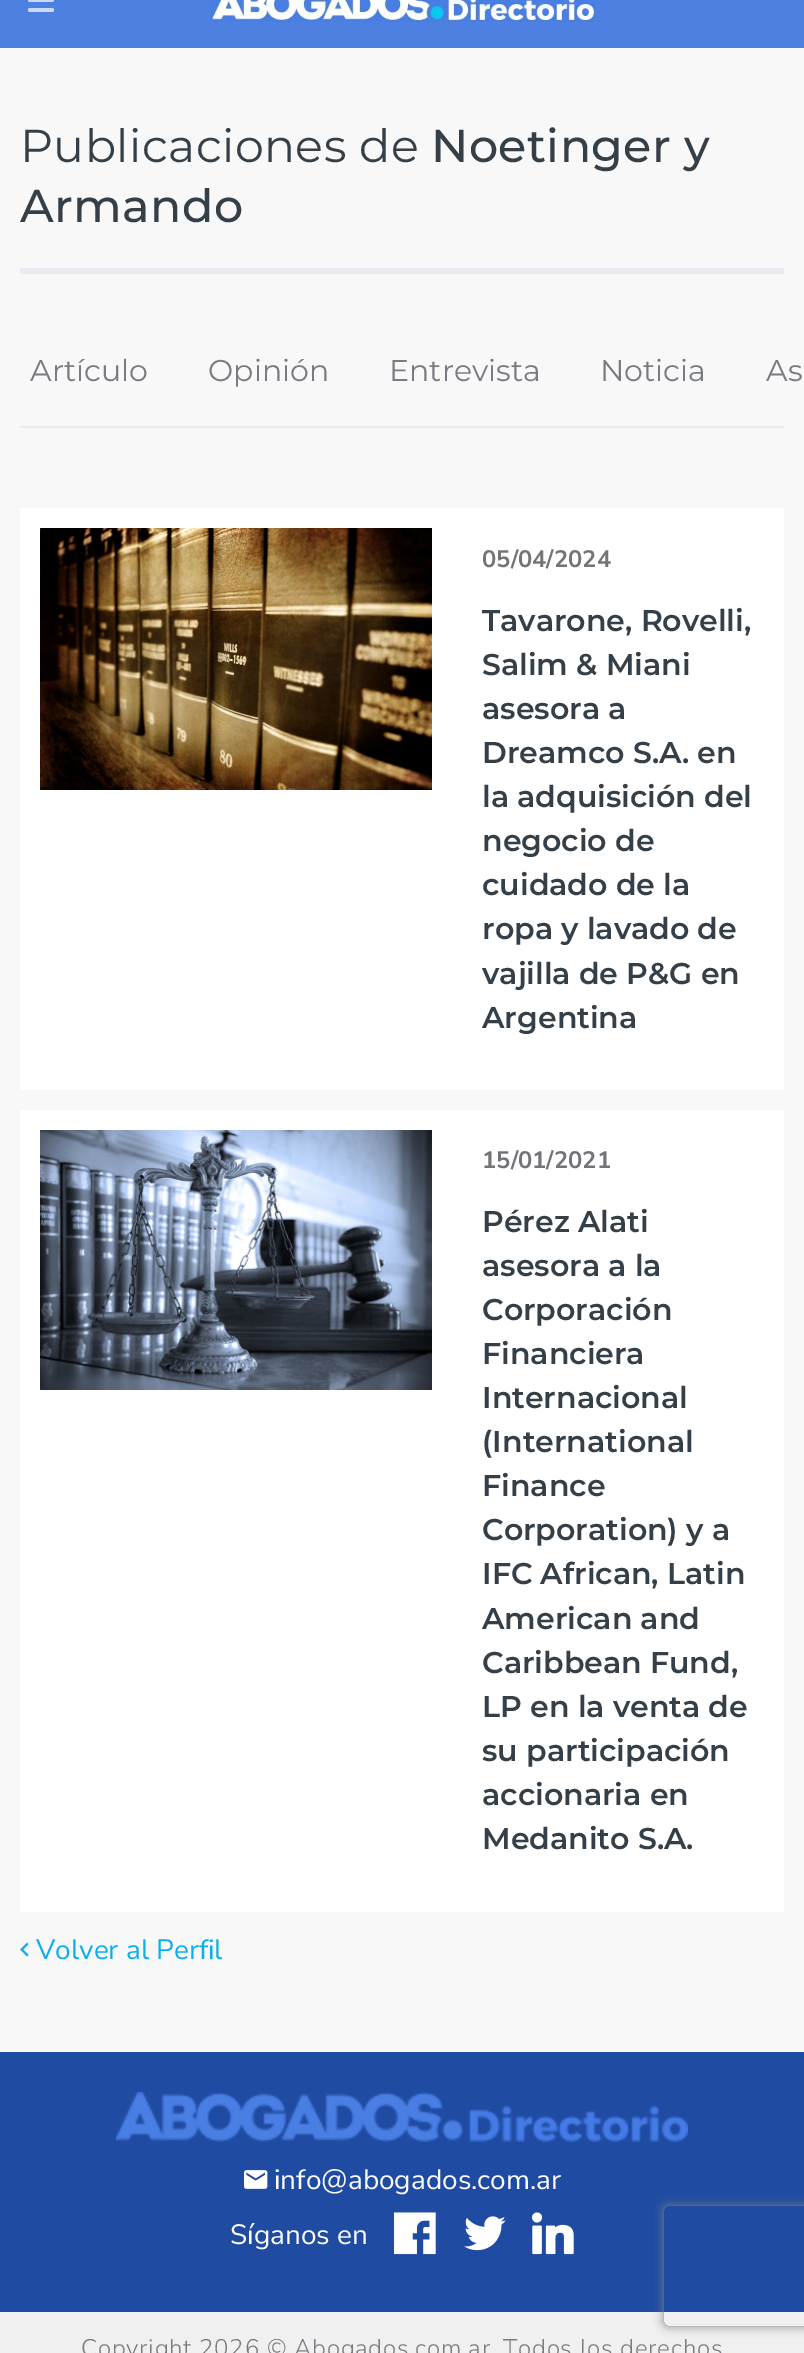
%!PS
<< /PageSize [804 2353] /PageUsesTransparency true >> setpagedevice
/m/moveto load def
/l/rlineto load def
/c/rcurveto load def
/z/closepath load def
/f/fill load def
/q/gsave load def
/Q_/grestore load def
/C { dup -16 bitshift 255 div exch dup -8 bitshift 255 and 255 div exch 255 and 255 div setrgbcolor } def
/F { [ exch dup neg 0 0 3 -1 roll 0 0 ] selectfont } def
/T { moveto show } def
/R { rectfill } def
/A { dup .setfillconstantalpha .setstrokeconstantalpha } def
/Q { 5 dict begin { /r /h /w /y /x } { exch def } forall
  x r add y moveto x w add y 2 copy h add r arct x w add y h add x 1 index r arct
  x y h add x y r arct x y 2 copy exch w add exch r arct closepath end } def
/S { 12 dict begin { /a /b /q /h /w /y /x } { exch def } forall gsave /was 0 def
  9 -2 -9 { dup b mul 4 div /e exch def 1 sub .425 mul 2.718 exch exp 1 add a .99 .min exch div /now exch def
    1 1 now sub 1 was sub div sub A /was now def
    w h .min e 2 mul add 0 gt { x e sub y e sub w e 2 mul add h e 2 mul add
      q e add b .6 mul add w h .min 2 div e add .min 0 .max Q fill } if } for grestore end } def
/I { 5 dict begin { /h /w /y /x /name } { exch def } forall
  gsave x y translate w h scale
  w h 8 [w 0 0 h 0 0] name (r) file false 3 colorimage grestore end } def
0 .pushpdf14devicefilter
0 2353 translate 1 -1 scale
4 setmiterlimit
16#F8F8F8 C
0 0 804 2353 R
16#4D80E0 C
0 0 804 48 R
16#CAD9F6 C
28 -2 26 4 2 Q f
28 8 26 4 2 Q f
(1.rgb) 210 0 385 22 I
16#E8EBEF C
20 268 764 6 R
/Montserrat-Regular 46 F
16#353F48 C
20 162 m .4 0 (Publicaciones de) ashow
/Montserrat-Medium 46 F
431 162 m .4 0 (Noetinger y) ashow
20 222 m .4 0 (Armando) ashow
16#E8EBEF C
20 426 764 2 R
/Montserrat-Regular 30 F
16#787C82 C
(Artículo) 30 381 T
(Opinión) 208 381 T
(Entrevista) 389 381 T
(Noticia) 600 381 T
(As) 766 381 T
16#FFFFFF C
20 508 764 582 R
(2.rgb) 40 528 392 262 I
/NunitoSans-Bold 23.75 F
16#727477 C
(05/04/2024) 482 567 T
/Montserrat-SemiBold 30 F
16#353F48 C
(Tavarone, Rovelli,) 482 631 T
(Salim & Miani) 482 675 T
(asesora a) 482 719 T
(Dreamco S.A. en) 482 763 T
(la adquisición del) 482 807 T
(negocio de) 482 851 T
(cuidado de la) 482 895 T
(ropa y lavado de) 482 939 T
(vajilla de P&G en) 482 984 T
(Argentina) 482 1028 T
16#FFFFFF C
20 1110 764 802 R
(3.rgb) 40 1130 392 260 I
/NunitoSans-Bold 23.75 F
16#727477 C
(15/01/2021) 482 1168 T
/Montserrat-SemiBold 30 F
16#353F48 C
(Pérez Alati) 482 1232 T
(asesora a la) 482 1276 T
(Corporación) 482 1320 T
(Financiera) 482 1364 T
(Internacional) 482 1408 T
(\(International) 482 1452 T
(Finance) 482 1496 T
(Corporation\) y a) 482 1540 T
(IFC African, Latin) 482 1584 T
(American and) 482 1629 T
(Caribbean Fund,) 482 1673 T
(LP en la venta de) 482 1717 T
(su participación) 482 1761 T
(accionaria en) 482 1805 T
(Medanito S.A.) 482 1849 T
(4.rgb) 20 1942 9 15 I
/NunitoSans-Regular 28 F
16#0AAEEF C
(Volver al Perfil) 36 1959 T
16#1F4BA3 C
0 2052 804 260 R
(5.rgb) 116 2092 572 50 I
(6.rgb) 244 2170 24 19 I
16#FFFFFF C
(info@abogados.com.ar) 274 2189 T
(Síganos en) 230 2244 T
(7.rgb) 394 2212 42 43 I
(8.rgb) 464 2216 42 35 I
(9.rgb) 532 2212 42 43 I
16#F0F0F0 C
0 2312 804 41 R
/NunitoSans-Light 24 F
16#787C82 C
81 2356 m .8 0 (Copyright 2026 © Abogados.com.ar) ashow
503 2356 m .8 0 (Todos los derechos) ashow
q
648 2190 m 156 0 l 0 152 l -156 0 l z 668 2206 m 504 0 l 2 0 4 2 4 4 c 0 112 l 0 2 -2 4 -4 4 c -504 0 l -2 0 -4 -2 -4 -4 c 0 -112 l 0 -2 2 -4 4 -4 c z eoclip newpath
16#808080 C
664 2206 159 120 4 5 1 S
Q_
.poppdf14devicefilter showpage
